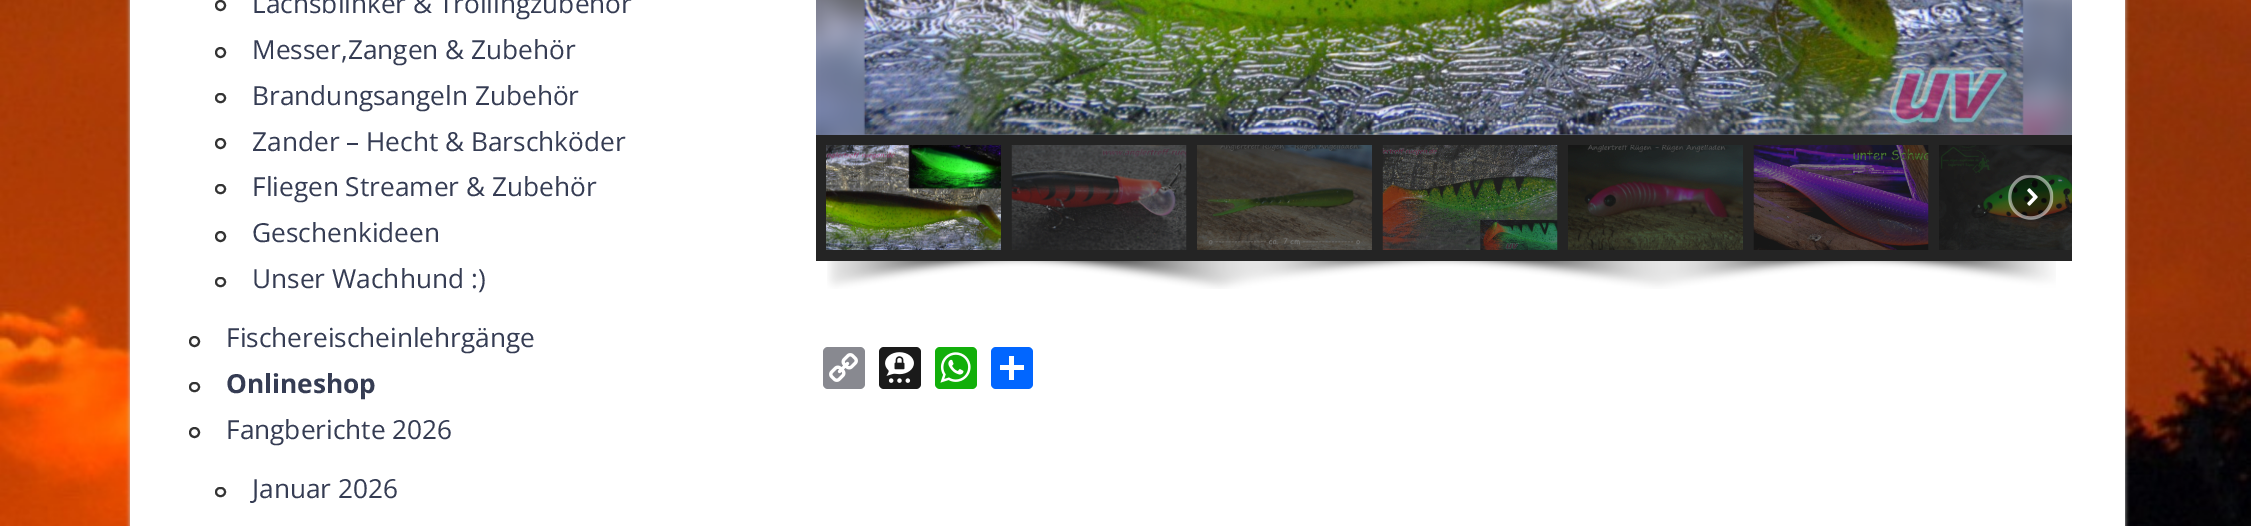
%!PS
<< /PageSize [2251 526] /PageUsesTransparency true >> setpagedevice
/f/fill load def
/s/stroke load def
/w/setlinewidth load def
/C { dup -16 bitshift 255 div exch dup -8 bitshift 255 and 255 div exch 255 and 255 div setrgbcolor } def
/F { [ exch dup neg 0 0 3 -1 roll 0 0 ] selectfont } def
/T { moveto show } def
/R { rectfill } def
/A { dup .setfillconstantalpha .setstrokeconstantalpha } def
/O { newpath 0 360 arc closepath } def
/Q { 5 dict begin { /r /h /w /y /x } { exch def } forall
  x r add y moveto x w add y 2 copy h add r arct x w add y h add x 1 index r arct
  x y h add x y r arct x y 2 copy exch w add exch r arct closepath end } def
/S { 12 dict begin { /a /b /q /h /w /y /x } { exch def } forall gsave /was 0 def
  9 -2 -9 { dup b mul 4 div /e exch def 1 sub .425 mul 2.718 exch exp 1 add a .99 .min exch div /now exch def
    1 1 now sub 1 was sub div sub A /was now def
    w h .min e 2 mul add 0 gt { x e sub y e sub w e 2 mul add h e 2 mul add
      q e add b .6 mul add w h .min 2 div e add .min 0 .max Q fill } if } for grestore end } def
/I { 5 dict begin { /h /w /y /x /name } { exch def } forall
  gsave x y translate w h scale
  w h 8 [w 0 0 h 0 0] name (r) file false 3 colorimage grestore end } def
0 .pushpdf14devicefilter
0 526 translate 1 -1 scale
4 setmiterlimit
16#FFFFFF C
0 0 2251 526 R
(1.rgb) 0 0 2251 526 I
16#CCCCCC C
130 -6 1995 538 0 2 1 S
16#FFFFFF C
130 0 1995 526 R
16#333333 C
2 w
220.5 5.5 4.5 O s
/OpenSans-Regular 26.25 F
16#353C53 C
(Lachsblinker & Trollingzubehör) 252 13 T
16#333333 C
220.5 52.5 4.5 O s
16#353C53 C
(Messer,Zangen & Zubehör) 252 59 T
16#333333 C
216 94 9 8 4 Q s
16#353C53 C
(Brandungsangeln Zubehör) 252 105 T
16#333333 C
220.5 143.5 4.5 O s
16#353C53 C
(Zander – Hecht & Barschköder) 252 151 T
16#333333 C
216 185 9 8 4 Q s
16#353C53 C
(Fliegen Streamer & Zubehör) 252 196 T
16#333333 C
220.5 236.5 4.5 O s
16#353C53 C
(Geschenkideen) 252 242 T
16#333333 C
216 278 9 8 4 Q s
16#353C53 C
(Unser Wachhund :\)) 252 288 T
16#333333 C
194.5 341.5 4.5 O s
16#353C53 C
(Fischereischeinlehrgänge) 226 347 T
16#333333 C
190 383 9 8 4 Q s
/OpenSans-Bold 26.25 F
16#353C53 C
(Onlineshop) 226 393 T
16#333333 C
194.5 432.5 4.5 O s
/OpenSans-Regular 26.25 F
16#353C53 C
(Fangberichte 2026) 226 439 T
16#333333 C
216 488 9 8 4 Q s
16#353C53 C
(Januar 2026) 252 498 T
(2.rgb) 816 0 1256 135 I
(3.rgb) 863 0 1161 135 I
16#242424 C
816 135 1256 126 R
(4.rgb) 826 145 175 105 I
(5.rgb) 1011 145 176 105 I
(6.rgb) 1197 145 175 105 I
(7.rgb) 1382 145 176 105 I
(8.rgb) 1568 145 175 105 I
(9.rgb) 1753 145 176 105 I
(10.rgb) 1939 145 133 105 I
(11.rgb) 2008 175 46 45 I
(12.rgb) 827 261 1229 28 I
16#888990 C
823 347 42 42 5 Q f
(13.rgb) 829 353 29 29 I
16#1A1A1A C
879 347 42 42 5 Q f
(14.rgb) 885 352 29 31 I
16#12AF0A C
935 347 42 42 5 Q f
(15.rgb) 940 352 31 31 I
16#0166FF C
991 347 42 42 5 Q f
16#FFFFFF C
1009 356 5 24 R
1000 365 24 5 R
.poppdf14devicefilter showpage
